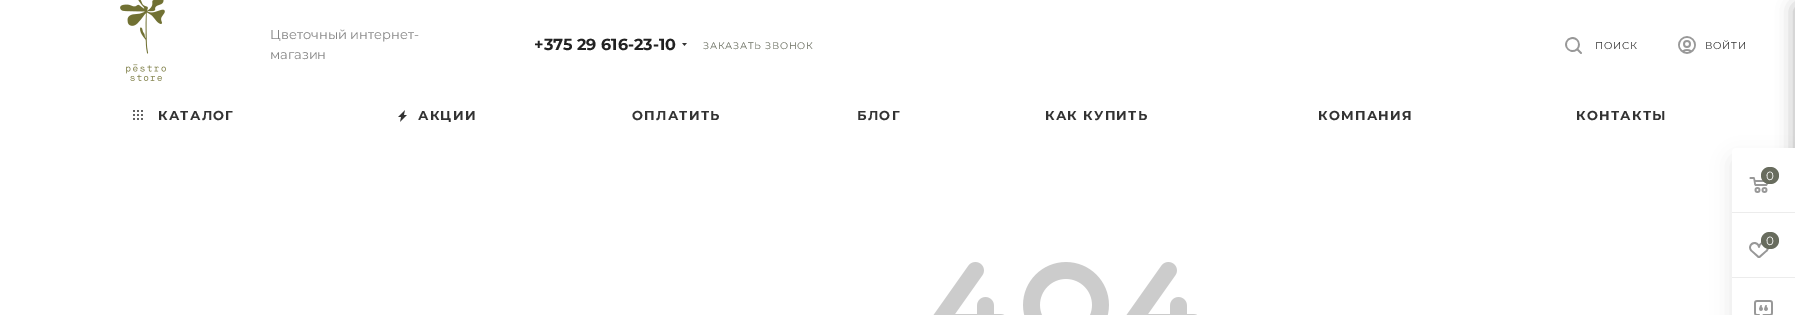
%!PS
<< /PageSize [1795 315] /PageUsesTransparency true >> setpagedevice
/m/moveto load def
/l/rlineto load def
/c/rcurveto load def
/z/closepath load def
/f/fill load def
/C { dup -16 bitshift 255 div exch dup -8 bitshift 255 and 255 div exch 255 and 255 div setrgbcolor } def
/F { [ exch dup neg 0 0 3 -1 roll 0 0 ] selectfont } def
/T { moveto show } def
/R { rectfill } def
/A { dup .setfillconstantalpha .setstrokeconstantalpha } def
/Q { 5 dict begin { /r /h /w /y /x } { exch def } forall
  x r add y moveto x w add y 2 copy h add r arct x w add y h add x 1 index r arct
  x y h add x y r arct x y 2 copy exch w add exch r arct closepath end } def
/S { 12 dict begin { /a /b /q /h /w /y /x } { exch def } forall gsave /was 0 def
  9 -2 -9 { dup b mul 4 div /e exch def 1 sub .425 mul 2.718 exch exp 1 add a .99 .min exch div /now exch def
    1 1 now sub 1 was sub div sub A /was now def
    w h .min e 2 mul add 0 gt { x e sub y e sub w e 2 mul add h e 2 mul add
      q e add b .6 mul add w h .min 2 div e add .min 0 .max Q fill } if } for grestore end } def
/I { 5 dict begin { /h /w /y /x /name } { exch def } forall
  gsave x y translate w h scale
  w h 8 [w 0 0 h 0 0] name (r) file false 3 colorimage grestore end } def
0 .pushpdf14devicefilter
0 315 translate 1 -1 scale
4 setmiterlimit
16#FFFFFF C
0 0 1795 315 R
(1.rgb) 120 0 46 81 I
/Montserrat-Regular 13 F
16#858585 C
(Цветочный интернет-) 270 39 T
(магазин) 270 59 T
/Montserrat-Bold 16 F
16#222222 C
(+375 29 616-23-10) 534 50 T
(2.rgb) 682 43 5 3 I
/Montserrat-Regular 9.6 F
16#686C5E C
703 49 m .75 0 (ЗАКАЗАТЬ ЗВОНОК) ashow
(3.rgb) 1565 37 17 17 I
/Montserrat-Regular 10 F
16#333333 C
1595 49 m .75 0 (ПОИСК) ashow
(4.rgb) 1678 36 18 18 I
1705 49 m .75 0 (ВОЙТИ) ashow
(5.rgb) 133 110 10 10 I
/Montserrat-Bold 13 F
158 120 m 1.25 0 (КАТАЛОГ) ashow
(6.rgb) 398 110 9 12 I
418 120 m 1.25 0 (АКЦИИ) ashow
632 120 m 1.25 0 (ОПЛАТИТЬ) ashow
857 120 m 1.25 0 (БЛОГ) ashow
1045 120 m 1.25 0 (КАК КУПИТЬ) ashow
1318 120 m 1.25 0 (КОМПАНИЯ) ashow
1576 120 m 1.25 0 (КОНТАКТЫ) ashow
(7.rgb) 933 262 264 53 I
16#2C2C2C C
1795 6 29 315 2 9 .4 S
16#000000 C
1732 158 63 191 4 10 .1 S
16#FFFFFF C
1736 148 m 59 0 l 0 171 l -59 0 l -2 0 -4 -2 -4 -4 c 0 -163 l 0 -2 2 -4 4 -4 c z f
16#ECECEC C
1732 212 63 1 R
(8.rgb) 1749 177 19 16 I
16#686C5E C
1761 167 18 17 8.5 Q f
/Montserrat-Regular 12 F
16#FFFFFF C
(0) 1766 180 T
16#ECECEC C
1732 277 63 1 R
(9.rgb) 1749 242 20 16 I
16#686C5E C
1761 232 18 17 8.5 Q f
16#FFFFFF C
(0) 1766 245 T
(10.rgb) 1754 300 19 15 I
.poppdf14devicefilter showpage
